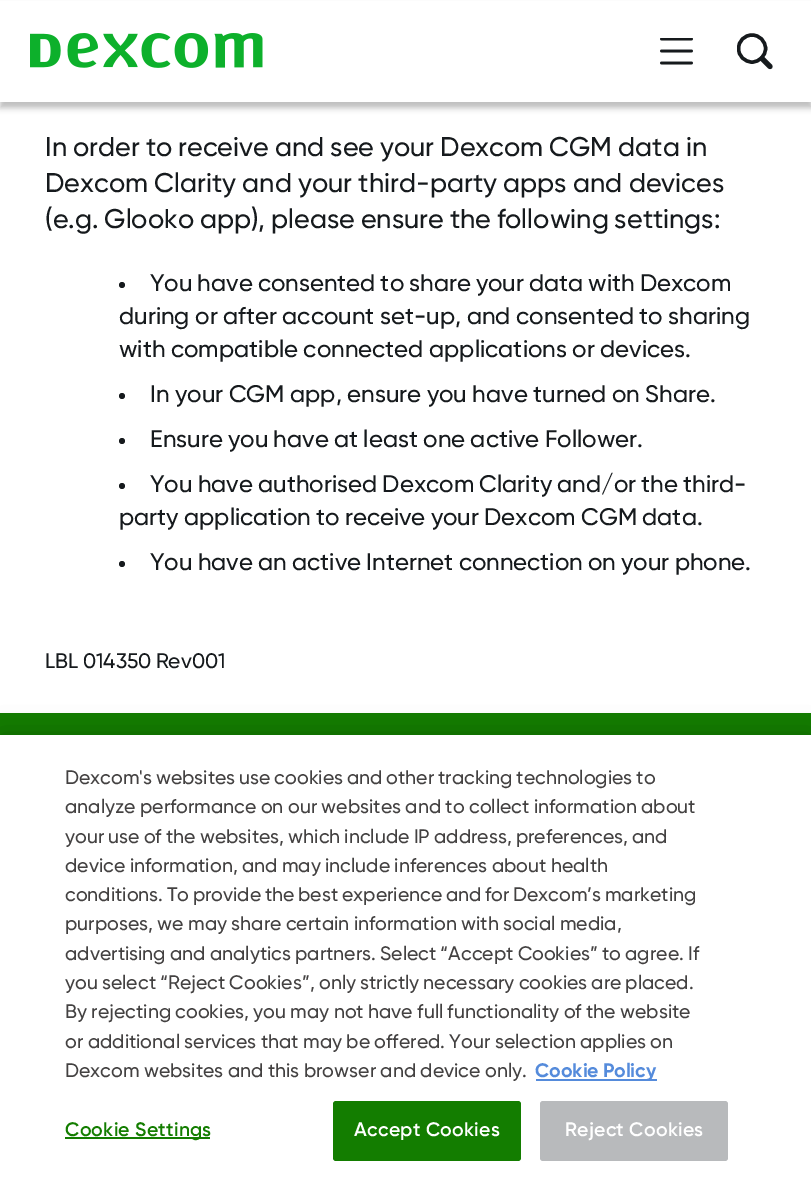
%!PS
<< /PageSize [811 1194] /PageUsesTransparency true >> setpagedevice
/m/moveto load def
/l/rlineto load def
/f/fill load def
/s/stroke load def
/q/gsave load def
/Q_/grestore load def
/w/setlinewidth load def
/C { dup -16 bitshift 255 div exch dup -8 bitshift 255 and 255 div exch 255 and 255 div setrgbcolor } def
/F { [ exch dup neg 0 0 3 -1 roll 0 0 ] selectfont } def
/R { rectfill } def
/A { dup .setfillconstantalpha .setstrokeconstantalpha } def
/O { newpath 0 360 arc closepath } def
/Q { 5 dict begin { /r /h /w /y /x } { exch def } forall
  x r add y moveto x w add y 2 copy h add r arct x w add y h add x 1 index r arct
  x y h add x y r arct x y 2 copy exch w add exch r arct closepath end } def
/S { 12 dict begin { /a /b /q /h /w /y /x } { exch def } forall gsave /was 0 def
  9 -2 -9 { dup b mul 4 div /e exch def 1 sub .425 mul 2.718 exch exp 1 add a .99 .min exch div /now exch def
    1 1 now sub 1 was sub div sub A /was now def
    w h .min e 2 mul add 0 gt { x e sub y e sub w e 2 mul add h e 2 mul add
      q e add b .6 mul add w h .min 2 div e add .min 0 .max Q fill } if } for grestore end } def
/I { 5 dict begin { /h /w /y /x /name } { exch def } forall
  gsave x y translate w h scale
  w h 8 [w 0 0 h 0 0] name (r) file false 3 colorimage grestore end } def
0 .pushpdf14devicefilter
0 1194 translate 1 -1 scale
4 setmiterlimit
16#FFFFFF C
0 0 811 1194 R
16#000000 C
0 6 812 102 0 3 .25 S
16#FFFFFF C
0 1 811 101 R
(1.rgb) 30 33 233 35 I
(2.rgb) 660 38 33 27 I
q
737 33 36 36 rectclip
16#161A1D C
3.4 w
752 48.5 13.5 O s
Q_
16#161A1D C
5.1 w
1 setlinecap
762 58.5 m 8 8 l s
/Gilroy-Medium 27 F
45 156 m -.75 0 32 (In order to receive and see your Dexcom CGM data in) widthshow
45 192 m -.5 0 32 (Dexcom Clarity and your third-party apps and devices) widthshow
45 228 m -1 0 32 (\(e.g. Glooko app\), please ensure the following settings:) widthshow
122 285 3 O f
/Gilroy-Medium 24 F
150 291 m -1 0 32 (You have consented to share your data with Dexcom) widthshow
119 324 m -.5 0 32 (during or after account set-up, and consented to sharing) widthshow
119 357 m -.5 0 32 (with compatible connected applications or devices.) widthshow
122 396 3 O f
150 402 m -.5 0 32 (In your CGM app, ensure you have turned on Share.) widthshow
122 441 3 O f
150 447 m -.75 0 32 (Ensure you have at least one active Follower.) widthshow
122 486 3 O f
150 492 m -.75 0 32 (You have authorised Dexcom Clarity and/or the third-) widthshow
119 525 m -.75 0 32 (party application to receive your Dexcom CGM data.) widthshow
122 564 3 O f
150 570 m -.75 0 32 (You have an active Internet connection on your phone.) widthshow
/Gilroy-Medium 21 F
45 668 m -1 0 32 (LBL 014350 Rev001) widthshow
16#137D00 C
0 713 811 22 R
16#000000 C
0 735 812 459 0 13.5 .2 S
16#FFFFFF C
0 735 811 459 R
/Gilroy-Medium 19.5 F
16#434141 C
65 784 m -1 0 32 (Dexcom's websites use cookies and other tracking technologies to) widthshow
65 813 m -.5 0 32 (analyze performance on our websites and to collect information about) widthshow
65 843 m -.75 0 32 (your use of the websites, which include IP address, preferences, and) widthshow
65 872 m -.5 0 32 (device information, and may include inferences about health) widthshow
65 901 m -1.25 0 32 (conditions. To provide the best experience and for Dexcom’s marketing) widthshow
65 930 m -.5 0 32 (purposes, we may share certain information with social media,) widthshow
65 960 m -.75 0 32 (advertising and analytics partners. Select “Accept Cookies” to agree. If) widthshow
65 989 m -.75 0 32 (you select “Reject Cookies”, only strictly necessary cookies are placed.) widthshow
65 1018 m -.5 0 32 (By rejecting cookies, you may not have full functionality of the website) widthshow
65 1048 m -.5 0 32 (or additional services that may be offered. Your selection applies on) widthshow
65 1077 m -.5 0 32 (Dexcom websites and this browser and device only.) widthshow
16#558BDB C
536 1079 121 2 R
/Gilroy-Bold 19.5 F
535 1077 m -1 0 32 (Cookie Policy) widthshow
16#137D00 C
65 1137 145 2 R
/Gilroy-SemiBold 19.5 F
65 1136 m .25 0 (Cookie Settings) ashow
333 1101 188 60 3 Q f
16#FFFFFF C
354 1136 m .25 0 (Accept Cookies) ashow
16#B8BABC C
540 1101 188 60 3 Q f
16#FFFFFF C
565 1136 m .25 0 (Reject Cookies) ashow
.poppdf14devicefilter showpage
